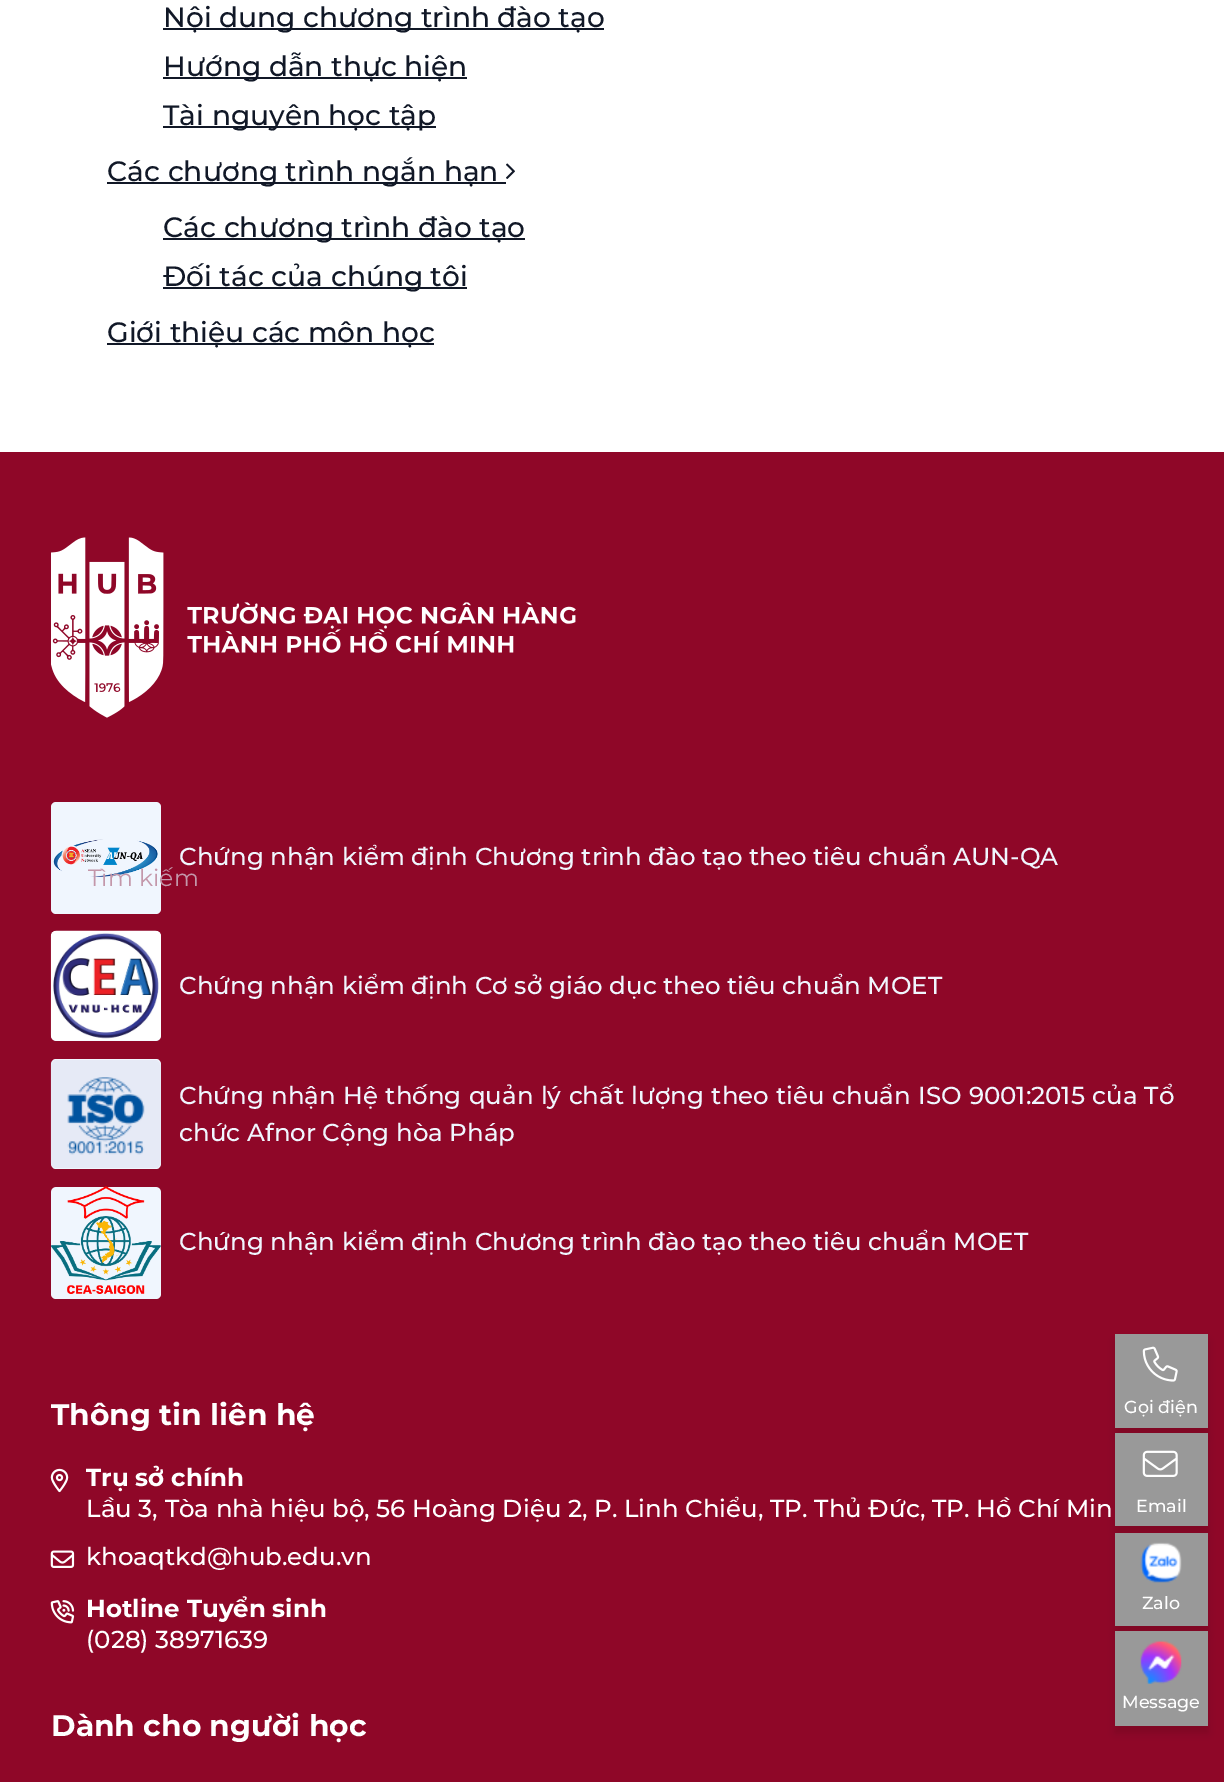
%!PS
<< /PageSize [1224 1782] /PageUsesTransparency true >> setpagedevice
/m/moveto load def
/f/fill load def
/C { dup -16 bitshift 255 div exch dup -8 bitshift 255 and 255 div exch 255 and 255 div setrgbcolor } def
/F { [ exch dup neg 0 0 3 -1 roll 0 0 ] selectfont } def
/T { moveto show } def
/R { rectfill } def
/A { dup .setfillconstantalpha .setstrokeconstantalpha } def
/Q { 5 dict begin { /r /h /w /y /x } { exch def } forall
  x r add y moveto x w add y 2 copy h add r arct x w add y h add x 1 index r arct
  x y h add x y r arct x y 2 copy exch w add exch r arct closepath end } def
/S { 12 dict begin { /a /b /q /h /w /y /x } { exch def } forall gsave /was 0 def
  9 -2 -9 { dup b mul 4 div /e exch def 1 sub .425 mul 2.718 exch exp 1 add a .99 .min exch div /now exch def
    1 1 now sub 1 was sub div sub A /was now def
    w h .min e 2 mul add 0 gt { x e sub y e sub w e 2 mul add h e 2 mul add
      q e add b .6 mul add w h .min 2 div e add .min 0 .max Q fill } if } for grestore end } def
/I { 5 dict begin { /h /w /y /x /name } { exch def } forall
  gsave x y translate w h scale
  w h 8 [w 0 0 h 0 0] name (r) file false 3 colorimage grestore end } def
0 .pushpdf14devicefilter
0 1782 translate 1 -1 scale
4 setmiterlimit
16#FFFFFF C
0 0 1224 1782 R
16#111827 C
163 28 441 2 R
/Montserrat-Medium 28 F
(Nội dung chương trình đào tạo) 163 27 T
163 77 304 2 R
(Hướng dẫn thực hiện) 163 76 T
163 126 273 2 R
(Tài nguyên học tập) 163 125 T
107 182 399 2 R
(Các chương trình ngắn hạn) 107 181 T
(1.rgb) 506 163 9 16 I
163 238 362 2 R
(Các chương trình đào tạo) 163 237 T
163 287 304 2 R
(Đối tác của chúng tôi) 163 286 T
107 343 327 2 R
(Giới thiệu các môn học) 107 342 T
16#8F0728 C
0 452 1224 1330 R
16#000000 C
1115 1341 93 94 0 3.5 .1 S
16#999999 C
1115 1334 93 94 R
(2.rgb) 1142 1346 36 36 I
/Montserrat-Medium 17.5 F
16#FFFFFF C
(Gọi điện) 1124 1413 T
16#000000 C
1115 1440 93 93 0 3.5 .1 S
16#999999 C
1115 1433 93 93 R
(3.rgb) 1142 1450 36 27 I
16#FFFFFF C
(Email) 1136 1512 T
16#000000 C
1115 1540 93 93 0 3.5 .1 S
16#999999 C
1115 1533 93 93 R
(4.rgb) 1140 1542 42 41 I
16#FFFFFF C
(Zalo) 1142 1609 T
16#000000 C
1115 1638 93 95 0 3.5 .1 S
16#999999 C
1115 1631 93 95 R
(5.rgb) 1140 1640 42 44 I
16#FFFFFF C
(Message) 1122 1708 T
(6.rgb) 51 537 525 181 I
16#F0F6FE C
51 802 110 112 5 Q f
(7.rgb) 53 839 105 38 I
/Montserrat-Medium 24.5 F
(Chứng nhận kiểm định Chương trình đào tạo theo tiêu chuẩn AUN-QA) 179 865 T
51 931 110 110 5 Q f
(8.rgb) 50 930 111 111 I
(Chứng nhận kiểm định Cơ sở giáo dục theo tiêu chuẩn MOET) 179 994 T
51 1059 110 110 5 Q f
(9.rgb) 50 1060 111 108 I
179 1104 m .75 0 32 (Chứng nhận Hệ thống quản lý chất lượng theo tiêu chuẩn ISO 9001:2015 của Tổ) widthshow
(chức Afnor Cộng hòa Pháp) 179 1141 T
51 1187 110 112 5 Q f
(10.rgb) 51 1186 110 108 I
(Chứng nhận kiểm định Chương trình đào tạo theo tiêu chuẩn MOET) 179 1250 T
/Montserrat-Bold 29.75 F
16#FFFFFF C
(Thông tin liên hệ) 51 1425 T
(11.rgb) 50 1468 19 25 I
/Montserrat-Bold 24.5 F
(Trụ sở chính) 86 1486 T
/Montserrat-Medium 24.5 F
(Lầu 3, Tòa nhà hiệu bộ, 56 Hoàng Diệu 2, P. Linh Chiểu, TP. Thủ Đức, TP. Hồ Chí Min) 86 1517 T
(12.rgb) 50 1550 25 18 I
(khoaqtkd@hub.edu.vn) 86 1565 T
(13.rgb) 50 1600 25 24 I
/Montserrat-Bold 24.5 F
(Hotline Tuyển sinh) 86 1617 T
/Montserrat-Medium 24.5 F
(\(028\) 38971639) 86 1648 T
/Montserrat-Bold 29.75 F
(Dành cho người học) 51 1736 T
/Montserrat-Regular 23.5 F
16#C397AA C
(Tìm kiếm) 88 886 T
.poppdf14devicefilter showpage
